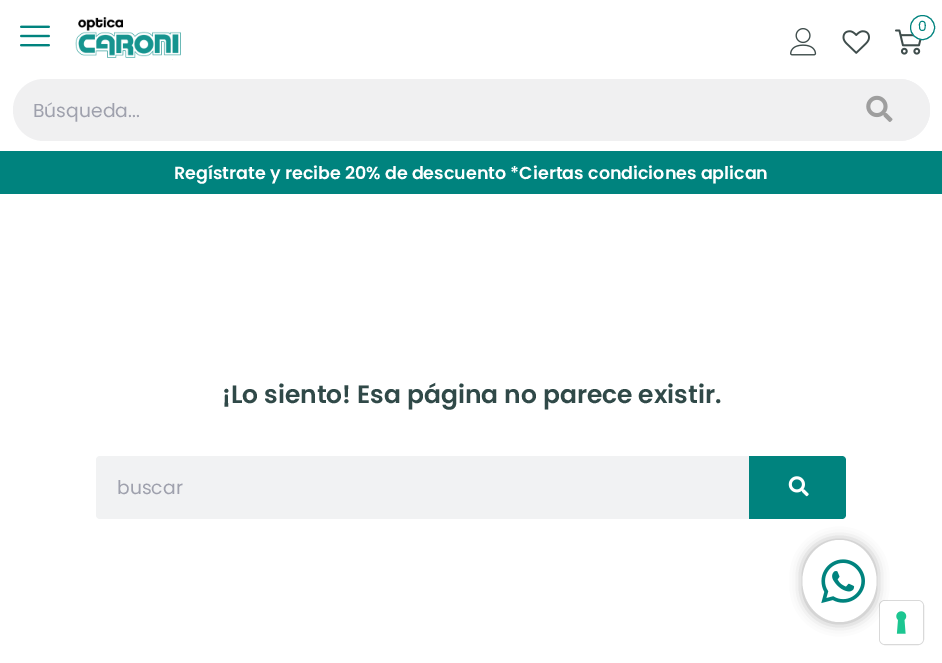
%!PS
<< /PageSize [942 663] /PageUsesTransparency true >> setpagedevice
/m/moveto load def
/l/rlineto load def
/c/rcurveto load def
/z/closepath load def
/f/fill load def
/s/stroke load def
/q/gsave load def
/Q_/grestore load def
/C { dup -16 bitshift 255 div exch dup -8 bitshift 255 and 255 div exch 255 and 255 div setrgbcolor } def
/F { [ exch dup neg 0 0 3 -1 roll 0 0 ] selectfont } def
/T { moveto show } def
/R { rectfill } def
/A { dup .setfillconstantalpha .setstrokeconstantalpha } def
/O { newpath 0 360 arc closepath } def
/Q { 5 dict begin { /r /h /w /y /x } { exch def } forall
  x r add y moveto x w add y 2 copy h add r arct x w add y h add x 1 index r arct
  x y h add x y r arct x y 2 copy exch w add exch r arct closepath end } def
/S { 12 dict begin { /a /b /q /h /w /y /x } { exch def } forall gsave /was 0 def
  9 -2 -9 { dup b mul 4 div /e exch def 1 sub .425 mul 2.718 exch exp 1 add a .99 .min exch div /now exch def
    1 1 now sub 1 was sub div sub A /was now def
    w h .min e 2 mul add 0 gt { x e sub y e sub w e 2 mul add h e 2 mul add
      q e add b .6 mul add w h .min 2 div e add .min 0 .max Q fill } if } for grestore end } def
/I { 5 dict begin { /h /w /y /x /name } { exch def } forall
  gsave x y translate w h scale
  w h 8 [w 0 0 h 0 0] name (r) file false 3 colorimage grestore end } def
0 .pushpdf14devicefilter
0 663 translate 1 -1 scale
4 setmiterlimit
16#FFFFFF C
0 0 942 663 R
(1.rgb) 20 25 30 22 I
(2.rgb) 75 17 106 43 I
(5.rgb) 895 29 27 26 I
922.5 27.5 12 O q f Q_
16#00837E C
s
/Poppins-Regular 14 F
(0) 918 31 T
(3.rgb) 790 28 27 28 I
(4.rgb) 842 30 28 24 I
16#F0F0F1 C
13 79 917 62 31 Q f
/Poppins-Regular 18.75 F
16#9FA1AD C
(Búsqueda...) 33 117 T
16#F0F0F1 C
826 79 m 73 0 l 17 0 31 14 31 31 c 0 17 -14 31 -31 31 c -73 0 l z f
(6.rgb) 866 95 27 27 I
16#00837E C
0 151 942 43 R
/Poppins-SemiBold 17.5 F
16#FFFFFF C
(Regístrate y recibe 20% de descuento *Ciertas condiciones aplican) 174 179 T
/Poppins-SemiBold 25 F
16#304948 C
(¡Lo siento! Esa página no parece existir.) 222 403 T
16#F1F2F3 C
96 456 750 63 4 Q f
/Poppins-Regular 18.75 F
16#9FA1AD C
(buscar) 117 494 T
16#00837E C
749 456 m 93 0 l 2 0 4 2 4 4 c 0 55 l 0 2 -2 4 -4 4 c -93 0 l z f
(7.rgb) 788 476 21 21 I
16#000000 C
803 540 73 83 36.5 6 .33 S
16#FFFFFF C
839.5 540 m 20.5 0 37 18.5 37 41 c 0 22.5 -16.5 41 -37 41 c -20.5 0 -37 -18.5 -37 -41 c 0 -22.5 16.5 -41 37 -41 c z f
(8.rgb) 821 559 44 45 I
0.15 A
16#000000 C
879.5 600.5 44 44 5.5 Q s
1 A
16#FFFFFF C
880 601 43 43 5 Q f
(9.rgb) 896 611 11 23 I
.poppdf14devicefilter showpage
